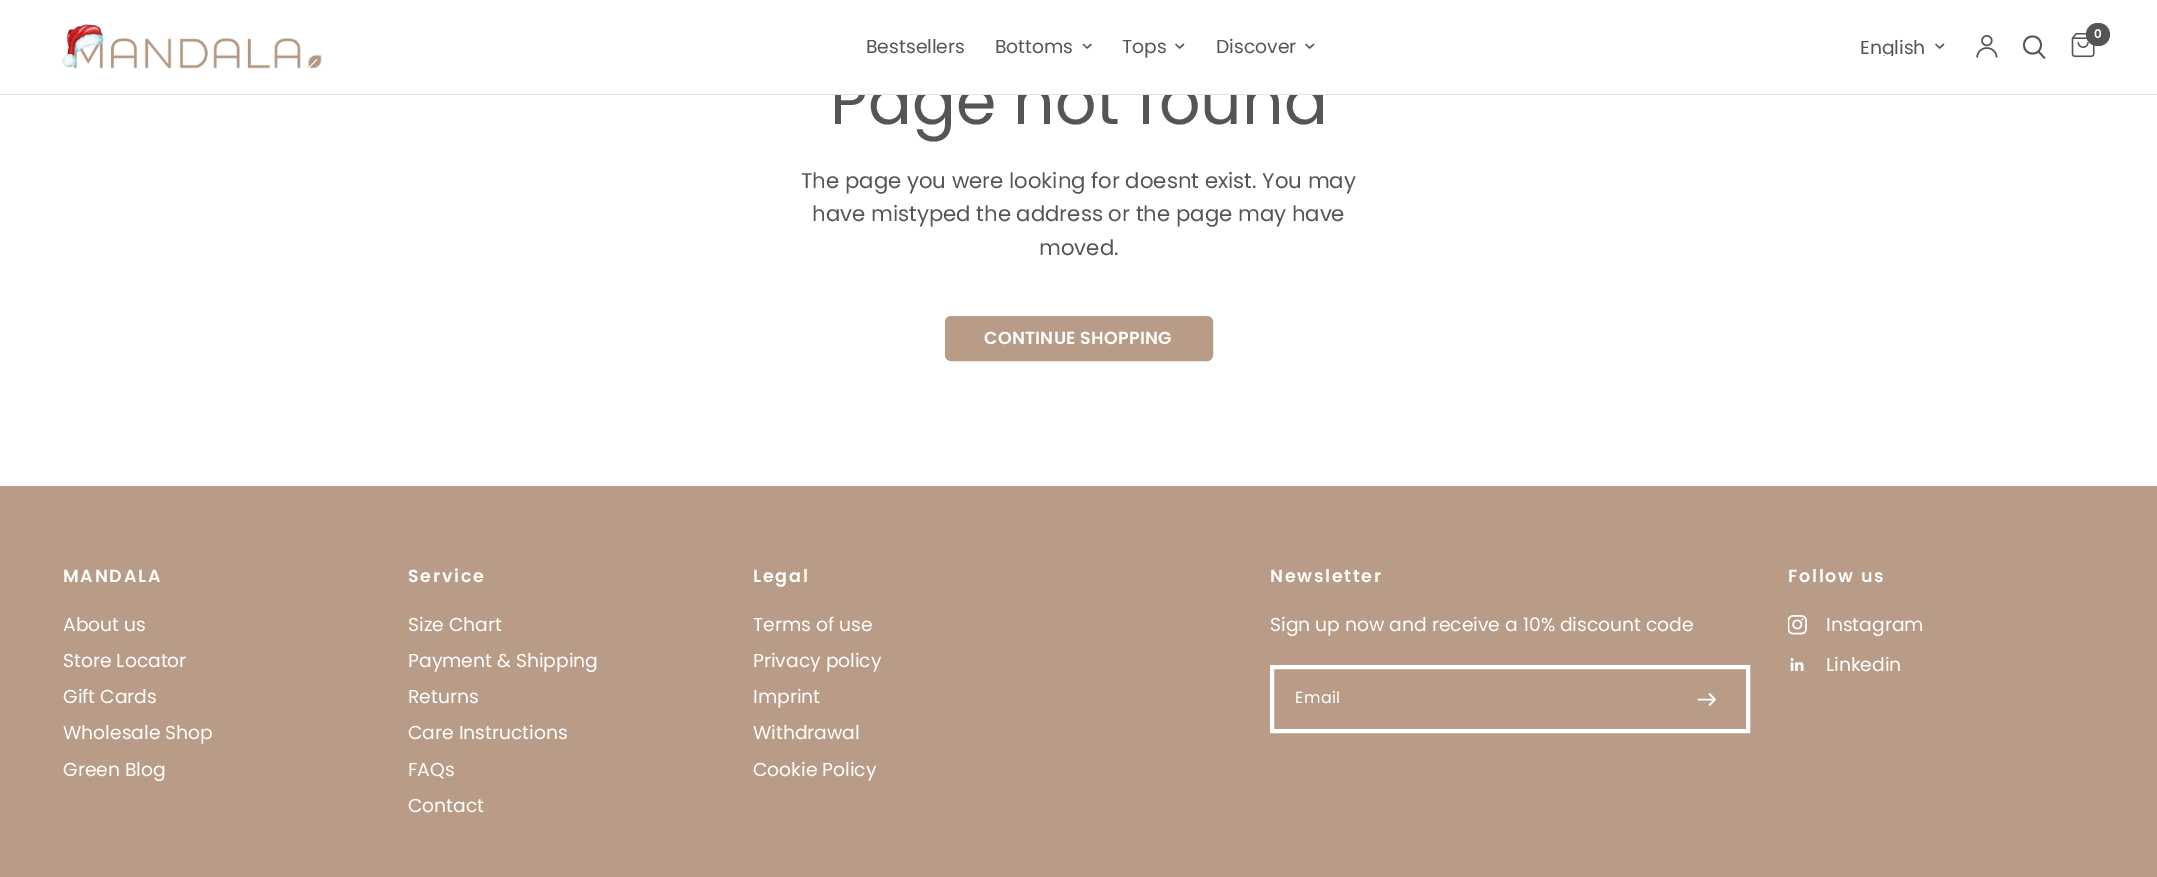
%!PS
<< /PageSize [2157 877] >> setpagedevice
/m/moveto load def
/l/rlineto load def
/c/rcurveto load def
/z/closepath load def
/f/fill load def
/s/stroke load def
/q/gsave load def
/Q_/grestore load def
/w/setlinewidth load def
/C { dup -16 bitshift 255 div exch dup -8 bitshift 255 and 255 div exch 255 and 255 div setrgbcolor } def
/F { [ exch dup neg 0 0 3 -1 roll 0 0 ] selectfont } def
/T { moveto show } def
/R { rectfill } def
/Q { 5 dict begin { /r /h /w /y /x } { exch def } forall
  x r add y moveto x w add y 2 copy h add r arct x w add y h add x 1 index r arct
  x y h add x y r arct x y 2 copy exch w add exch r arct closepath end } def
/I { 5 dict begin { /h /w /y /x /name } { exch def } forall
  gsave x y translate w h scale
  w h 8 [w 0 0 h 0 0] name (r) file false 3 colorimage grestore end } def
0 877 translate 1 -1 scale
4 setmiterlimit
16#FFFFFF C
0 0 2157 877 R
/Poppins-Regular 65 F
16#545656 C
(Page not found) 830 124 T
16#FFFFFF C
834 74 489 20 R
16#E2E2E2 C
0 94 2157 1 R
(1.rgb) 62 24 260 45 I
/Poppins-Regular 18.75 F
16#545656 C
(Bestsellers) 866 53 T
(Bottoms) 995 53 T
1.4 w
1 setlinecap
1 setlinejoin
1091 44.5 m -4 3.5 l -3.5 -3.5 l s
(Tops) 1122 53 T
1183.5 44.5 m -4 3.5 l -3.5 -3.5 l s
(Discover) 1216 53 T
1313.5 44.5 m -4 3.5 l -3.5 -3.5 l s
(2.rgb) 2071 33 24 25 I
2086 23 24 23 11.5 Q f
/Poppins-SemiBold 12 F
16#FFFFFF C
(0) 2094 38 T
q
1860 38 70 18 rectclip
/Poppins-Regular 18.75 F
16#545656 C
(English) 1860 54 T
Q_
16#545656 C
1943.5 44.5 m -4 3.5 l -3.5 -3.5 l s
(3.rgb) 1976 35 22 23 I
1.8 w
2039 52 m 5.5 6 l 2041 45 m 0 11.5 -17 11.5 -17 0 c 0 -11.5 17 -11.5 17 0 c z s
/Poppins-Regular 21.25 F
(The page you were looking for doesnt exist. You may) 801 188 T
(have mistyped the address or the page may have) 812 221 T
(moved.) 1039 255 T
16#B89C87 C
945.5 316.5 267 44 5.5 Q q f Q_
1 w
0 setlinecap
0 setlinejoin
s
/Poppins-SemiBold 17.5 F
16#FFFFFF C
984 344 m .3 0 (CONTINUE SHOPPING) ashow
16#B89C87 C
0 486 2157 391 R
16#FFFFFF C
63 582 m 1.75 0 (MANDALA) ashow
/Poppins-Regular 18.75 F
(About us) 63 631 T
(Store Locator) 63 667 T
(Gift Cards) 63 703 T
(Wholesale Shop) 63 739 T
(Green Blog) 63 776 T
/Poppins-SemiBold 17.5 F
408 582 m 1.75 0 (Service) ashow
/Poppins-Regular 18.75 F
(Size Chart) 408 631 T
(Payment & Shipping) 408 667 T
(Returns) 408 703 T
(Care Instructions) 408 739 T
(FAQs) 408 776 T
(Contact) 408 812 T
/Poppins-SemiBold 17.5 F
753 582 m 1.75 0 (Legal) ashow
/Poppins-Regular 18.75 F
(Terms of use) 753 631 T
(Privacy policy) 753 667 T
(Imprint) 753 703 T
(Withdrawal) 753 739 T
(Cookie Policy) 753 776 T
/Poppins-SemiBold 17.5 F
1270 582 m 1.75 0 (Newsletter) ashow
/Poppins-Regular 18.75 F
(Sign up now and receive a 10% discount code) 1270 631 T
4 w
1272 667 476 64 rectstroke
/Poppins-Regular 16 F
1295 703 m .5 0 (Email) ashow
1.5 w
1 setlinecap
1 setlinejoin
1698.5 699.5 m 15 0 l 1709.5 694 m 5.5 5.5 l -5.5 5.5 l s
/Poppins-SemiBold 17.5 F
1788 582 m 1.75 0 (Follow us) ashow
(4.rgb) 1788 615 19 20 I
/Poppins-Regular 18.75 F
(Instagram) 1826 631 T
(5.rgb) 1790 658 14 13 I
(Linkedin) 1826 671 T
showpage
